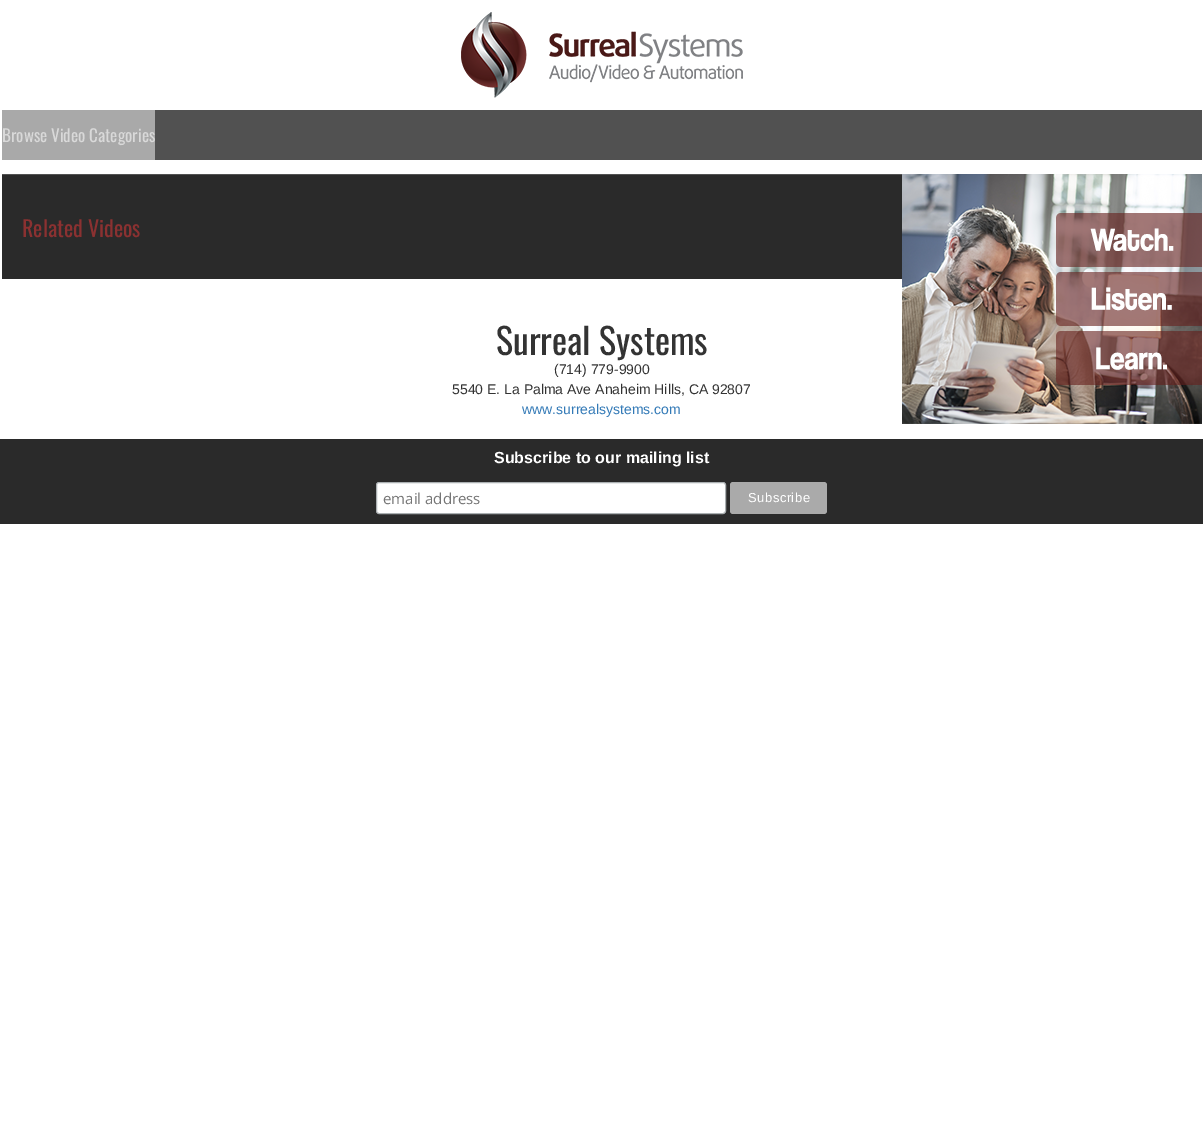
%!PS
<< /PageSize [1203 1142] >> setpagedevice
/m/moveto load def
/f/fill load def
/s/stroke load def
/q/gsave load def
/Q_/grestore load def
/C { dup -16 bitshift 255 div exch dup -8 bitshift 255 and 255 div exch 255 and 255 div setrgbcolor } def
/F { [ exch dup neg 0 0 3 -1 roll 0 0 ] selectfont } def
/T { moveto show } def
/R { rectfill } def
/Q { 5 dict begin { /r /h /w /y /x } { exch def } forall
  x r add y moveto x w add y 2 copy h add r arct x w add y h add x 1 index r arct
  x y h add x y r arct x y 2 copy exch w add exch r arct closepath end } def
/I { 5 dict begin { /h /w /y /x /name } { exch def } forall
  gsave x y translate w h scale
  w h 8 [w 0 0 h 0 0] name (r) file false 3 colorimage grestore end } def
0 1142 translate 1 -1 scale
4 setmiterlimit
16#FFFFFF C
0 0 1203 1142 R
(1.rgb) 461 12 282 86 I
16#515151 C
155 110 1047 50 R
16#A9A9A9 C
2 110 153 50 R
/Oswald-Regular 17 F
16#D9D9D9 C
(Browse Video Categories) 2 142 T
16#525252 C
2 174 900 1 R
(2.rgb) 902 174 300 250 I
16#2A2A2A C
2 175 900 104 R
/Oswald-Regular 22 F
16#8B3131 C
(Related Videos) 22 237 T
/Oswald-Regular 36 F
16#333333 C
(Surreal Systems) 496 355 T
/LiberationSans-Regular 14 F
(\(714\) 779-9900) 554 374 T
(5540 E. La Palma Ave Anaheim Hills, CA 92807) 452 394 T
16#337AB7 C
(www.surrealsystems.com) 522 414 T
16#2A2A2A C
0 439 1203 85 R
/LiberationSans-Bold 16 F
16#FFFFFF C
(Subscribe to our mailing list) 494 463 T
376.5 482.5 349 31 2.5 Q q f Q_
16#ABB0B2 C
s
/OpenSans-Regular 15 F
16#757575 C
(email address) 383 504 T
16#AAAAAA C
730 482 97 32 3 Q f
/LiberationSans-Regular 13 F
16#FFFFFF C
748 502 m .5 0 (Subscribe) ashow
showpage
